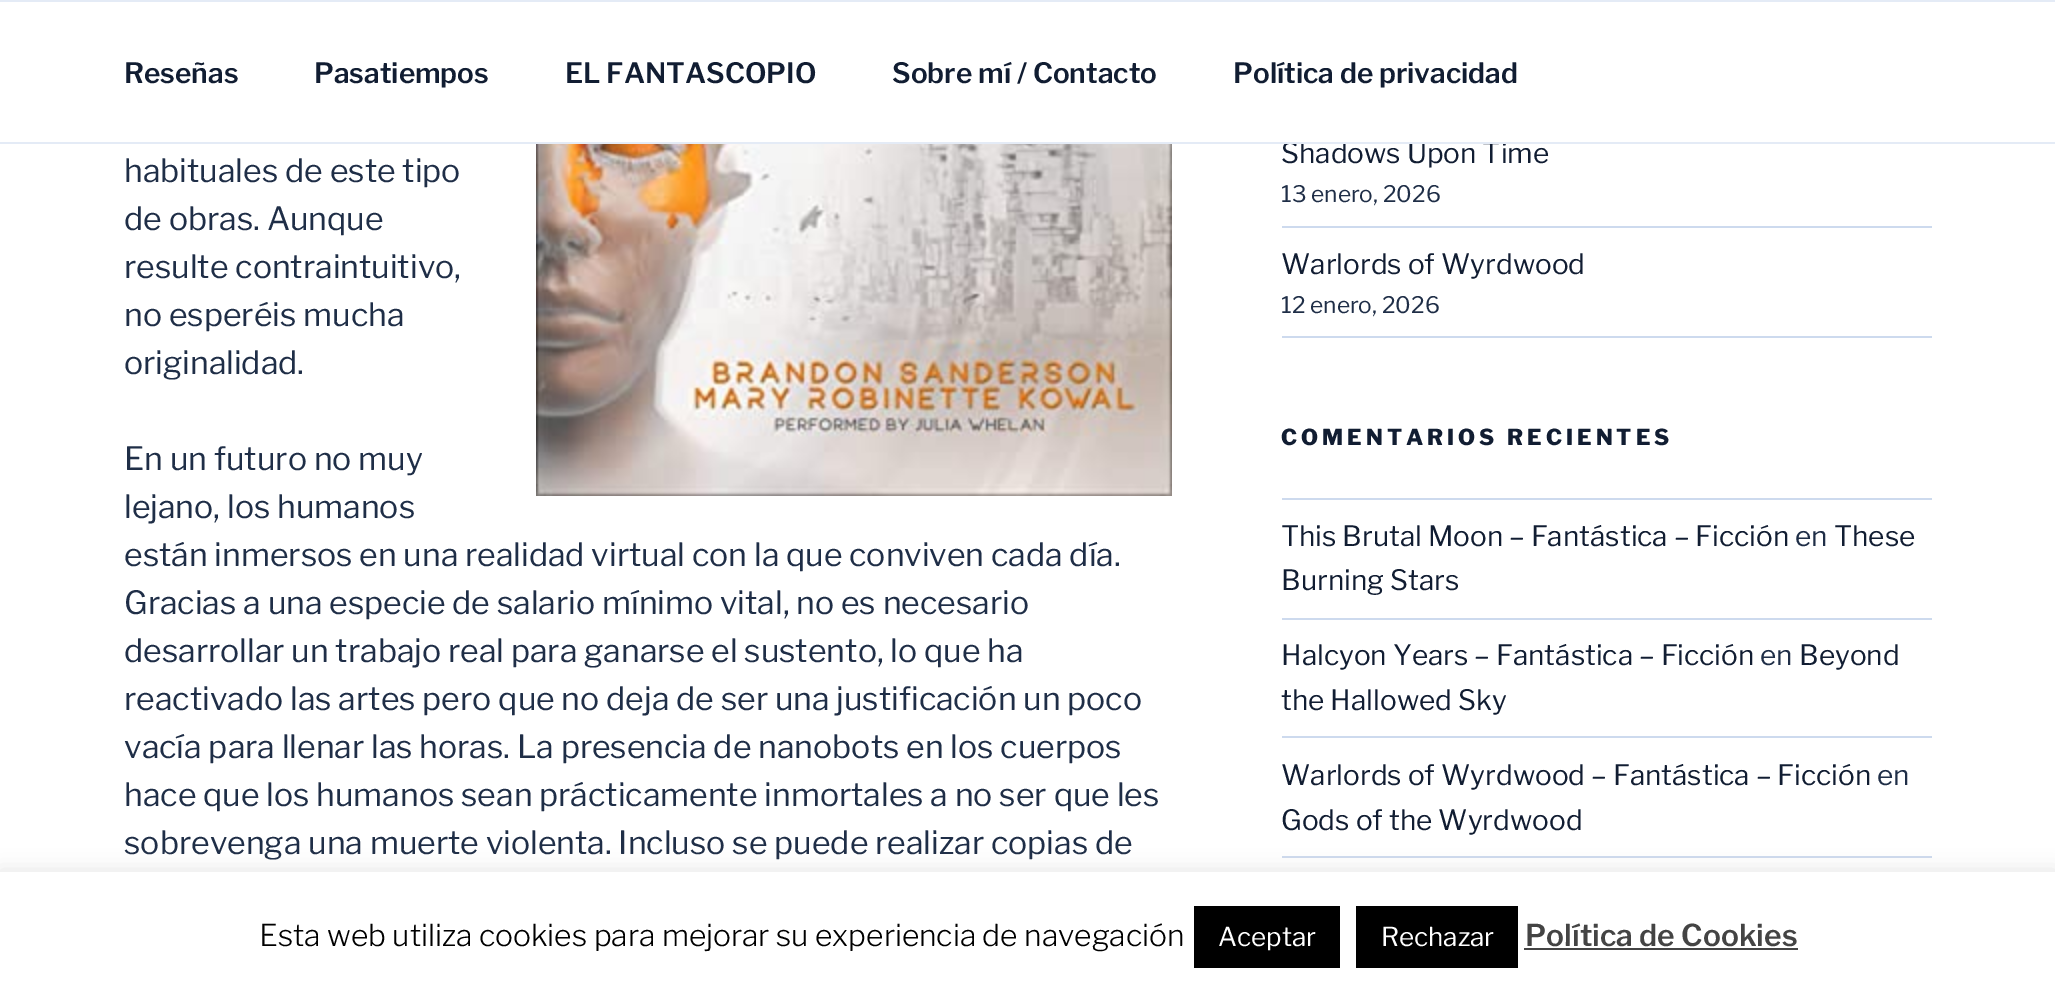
%!PS
<< /PageSize [2055 992] /PageUsesTransparency true >> setpagedevice
/m/moveto load def
/C { dup -16 bitshift 255 div exch dup -8 bitshift 255 and 255 div exch 255 and 255 div setrgbcolor } def
/F { [ exch dup neg 0 0 3 -1 roll 0 0 ] selectfont } def
/T { moveto show } def
/R { rectfill } def
/A { dup .setfillconstantalpha .setstrokeconstantalpha } def
/Q { 5 dict begin { /r /h /w /y /x } { exch def } forall
  x r add y moveto x w add y 2 copy h add r arct x w add y h add x 1 index r arct
  x y h add x y r arct x y 2 copy exch w add exch r arct closepath end } def
/S { 12 dict begin { /a /b /q /h /w /y /x } { exch def } forall gsave /was 0 def
  9 -2 -9 { dup b mul 4 div /e exch def 1 sub .425 mul 2.718 exch exp 1 add a .99 .min exch div /now exch def
    1 1 now sub 1 was sub div sub A /was now def
    w h .min e 2 mul add 0 gt { x e sub y e sub w e 2 mul add h e 2 mul add
      q e add b .6 mul add w h .min 2 div e add .min 0 .max Q fill } if } for grestore end } def
/I { 5 dict begin { /h /w /y /x /name } { exch def } forall
  gsave x y translate w h scale
  w h 8 [w 0 0 h 0 0] name (r) file false 3 colorimage grestore end } def
0 .pushpdf14devicefilter
0 992 translate 1 -1 scale
4 setmiterlimit
16#FFFFFF C
0 0 2055 992 R
/LibreFranklin-Thin 28 F
16#111D32 C
(Shadows Upon Time) 1281 163 T
16#FFFFFF C
1290 141 1 1 R
16#E4EBF6 C
0 0 2055 2 R
0 142 2055 2 R
/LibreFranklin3-Thin 28 F
16#111D32 C
(Reseñas) 124 83 T
(Pasatiempos) 314 83 T
(EL FANTASCOPIO) 565 83 T
(Sobre mí / Contacto) 892 83 T
(Política de privacidad) 1233 83 T
/LibreFranklin-Thin 32 F
16#1F2E47 C
(habituales de este tipo) 124 182 T
(de obras. Aunque) 124 230 T
(resulte contraintuitivo,) 124 278 T
(no esperéis mucha) 124 326 T
(originalidad.) 124 374 T
(1.rgb) 536 144 636 352 I
(En un futuro no muy) 124 470 T
(lejano, los humanos) 124 518 T
(están inmersos en una realidad virtual con la que conviven cada día.) 124 566 T
(Gracias a una especie de salario mínimo vital, no es necesario) 124 614 T
(desarrollar un trabajo real para ganarse el sustento, lo que ha) 124 662 T
(reactivado las artes pero que no deja de ser una justificación un poco) 124 710 T
(vacía para llenar las horas. La presencia de nanobots en los cuerpos) 124 758 T
(hace que los humanos sean prácticamente inmortales a no ser que les) 124 806 T
(sobrevenga una muerte violenta. Incluso se puede realizar copias de) 124 854 T
16#CDDAEE C
1282 226 650 2 R
/LibreFranklin-Thin 22.75 F
16#1F2E47 C
(13 enero, 2026) 1281 202 T
16#CDDAEE C
1282 336 650 2 R
/LibreFranklin-Thin 28 F
16#111D32 C
(Warlords of Wyrdwood) 1281 274 T
/LibreFranklin-Thin 22.75 F
16#1F2E47 C
(12 enero, 2026) 1281 313 T
/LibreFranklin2-Thin 22 F
16#111D32 C
1281 445 m 4 0 (COMENTARIOS RECIENTES) ashow
16#CDDAEE C
1282 498 650 2 R
1282 618 650 2 R
/LibreFranklin-Thin 28 F
16#111D32 C
(This Brutal Moon – Fantástica – Ficción) 1281 546 T
16#1F2E47 C
(en) 1795 546 T
16#111D32 C
(These) 1834 546 T
(Burning Stars) 1281 590 T
16#CDDAEE C
1282 736 650 2 R
16#111D32 C
(Halcyon Years – Fantástica – Ficción) 1281 665 T
16#1F2E47 C
(en) 1760 665 T
16#111D32 C
(Beyond) 1799 665 T
(the Hallowed Sky) 1281 710 T
16#CDDAEE C
1282 856 650 2 R
16#111D32 C
(Warlords of Wyrdwood – Fantástica – Ficción) 1281 785 T
16#1F2E47 C
(en) 1877 785 T
16#111D32 C
(Gods of the Wyrdwood) 1281 830 T
16#ACABAB C
0 870 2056 120 0 10 .3 S
16#FFFFFF C
0 872 2055 120 R
/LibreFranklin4-Thin 30 F
16#000000 C
(Esta web utiliza cookies para mejorar su experiencia de navegación) 259 946 T
1194 906 146 62 R
/LibreFranklin-Thin 26 F
16#FFFFFF C
(Aceptar) 1218 946 T
16#000000 C
1356 906 162 62 R
16#FFFFFF C
(Rechazar) 1381 946 T
/LibreFranklin3-Thin 30 F
16#444444 C
(Política de Cookies) 1525 946 T
1524 948 274 2 R
.poppdf14devicefilter showpage
